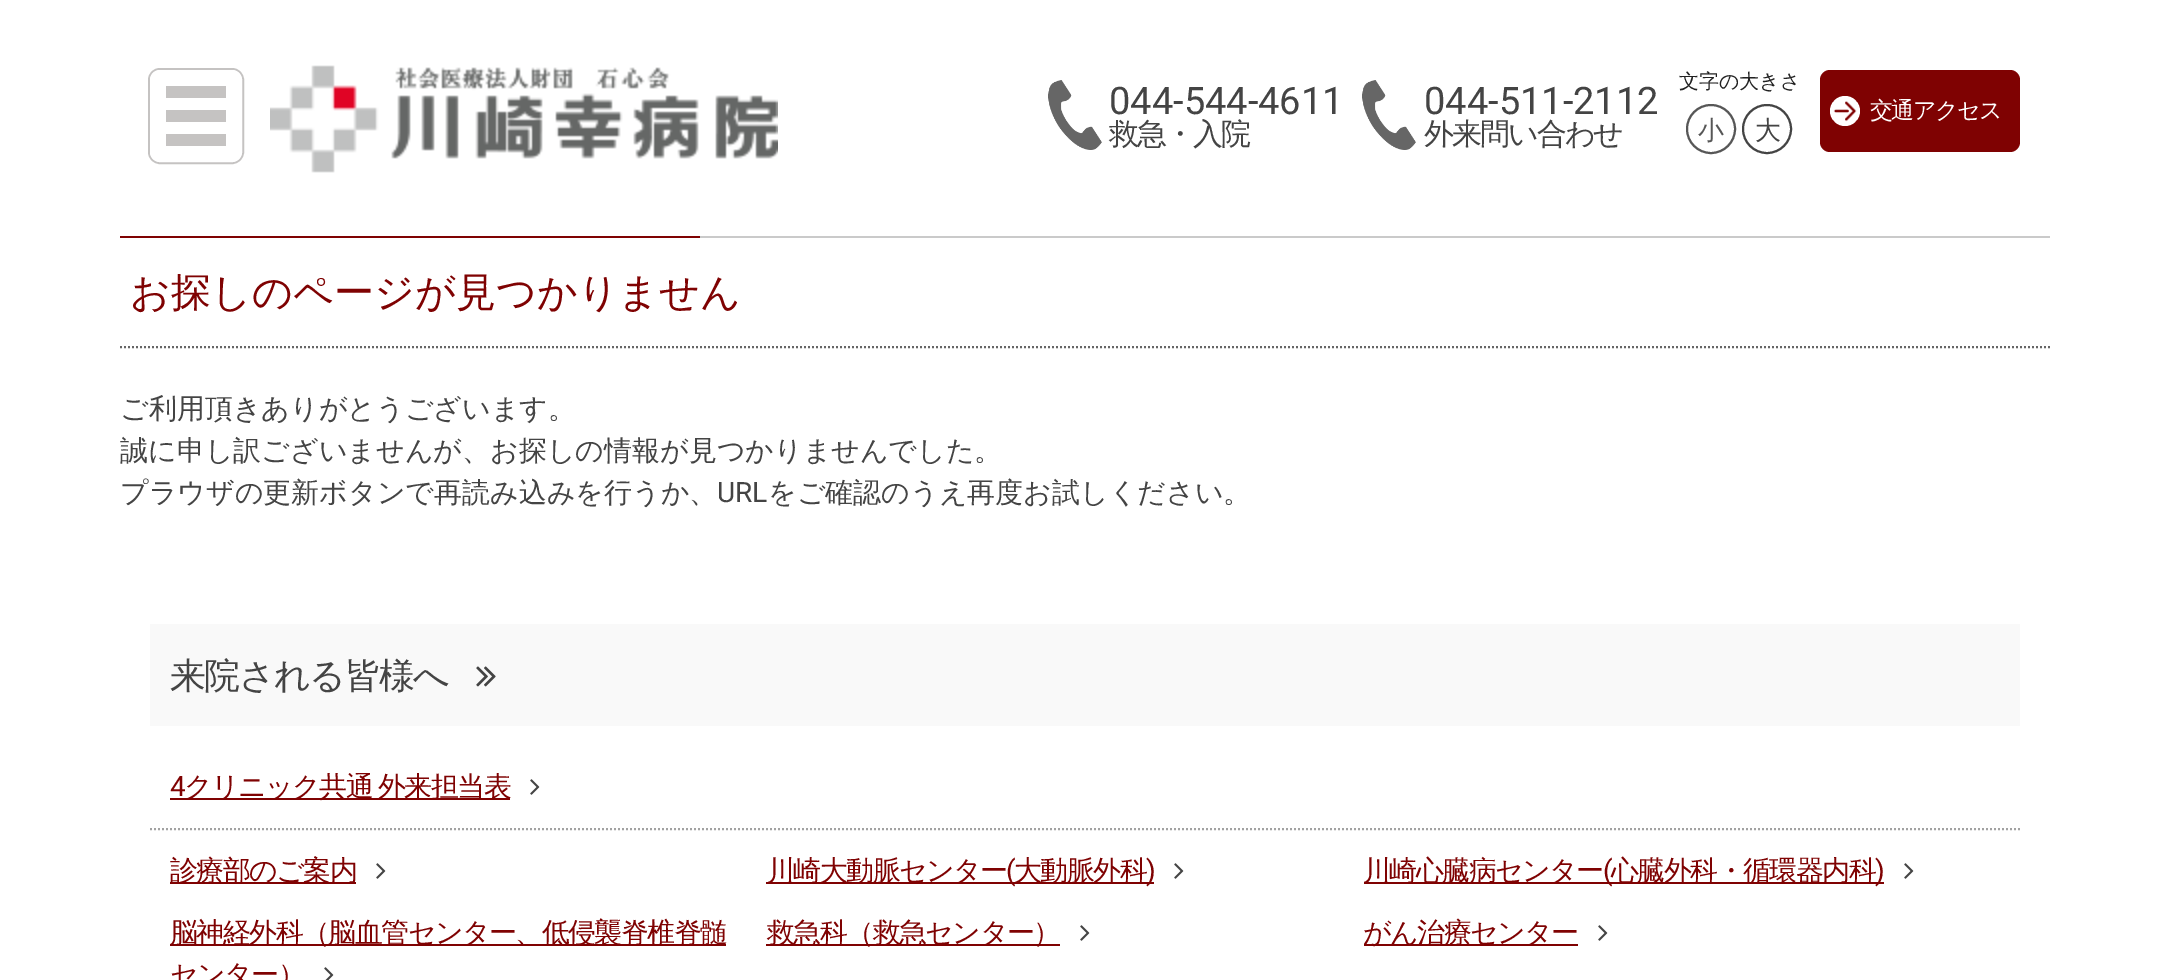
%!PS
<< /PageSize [2170 980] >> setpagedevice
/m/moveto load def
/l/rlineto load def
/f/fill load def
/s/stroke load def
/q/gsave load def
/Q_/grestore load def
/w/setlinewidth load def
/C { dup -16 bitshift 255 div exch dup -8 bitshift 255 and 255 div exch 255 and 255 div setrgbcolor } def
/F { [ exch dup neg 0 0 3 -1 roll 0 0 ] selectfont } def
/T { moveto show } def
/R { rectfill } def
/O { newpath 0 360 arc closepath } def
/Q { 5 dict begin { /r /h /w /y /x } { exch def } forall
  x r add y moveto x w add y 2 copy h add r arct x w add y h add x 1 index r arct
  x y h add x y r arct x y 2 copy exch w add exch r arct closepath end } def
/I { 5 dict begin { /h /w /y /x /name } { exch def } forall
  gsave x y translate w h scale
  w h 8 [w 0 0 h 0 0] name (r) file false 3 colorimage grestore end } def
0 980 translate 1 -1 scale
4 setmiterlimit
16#FFFFFF C
0 0 2170 980 R
16#C5C3C2 C
2 w
149 69 94 94 11 Q s
16#FFFFFF C
158 78 76 76 2 Q q f Q_
16 w
s
16#C5C3C2 C
166 110 60 12 R
166 86 60 12 R
166 134 60 12 R
(1.rgb) 270 65 508 108 I
(2.rgb) 1048 80 54 70 I
/Roboto-Regular 38 F
16#444444 C
(044-544-4611) 1109 114 T
/WenQuanYiZenHei-Medium 30 F
1109 144 m -2 0 (救急・入院) ashow
(2.rgb) 1362 80 54 70 I
/Roboto-Regular 38 F
(044-511-2112) 1424 114 T
/WenQuanYiZenHei-Medium 30 F
1424 144 m -2 0 (外来問い合わせ) ashow
/WenQuanYiZenHei-Medium 20 F
16#222222 C
(文字の大きさ) 1679 88 T
16#575757 C
2 w
1711 129 24 O s
/WenQuanYiZenHei-Medium 26 F
(小) 1698 139 T
16#444444 C
1767 129 24 O s
(大) 1755 139 T
16#7F0202 C
1820 70 200 82 10 Q f
16#FFFFFF C
1845 111 15 O f
(3.rgb) 1833 101 24 21 I
/WenQuanYiZenHei-Medium 23 F
1870 118 m -1.6 0 (交通アクセス) ashow
16#CACACA C
700 236 1350 2 R
16#666666 C
[2 2] 0 setdash
120 347 m 1930 0 l s
16#7F0202 C
120 236 580 2 R
/WenQuanYiZenHei-Medium 40 F
(お探しのページが見つかりません) 130 306 T
/WenQuanYiZenHei-Medium 28 F
16#444444 C
(ご利用頂きありがとうございます。) 120 418 T
(誠に申し訳ございませんが、お探しの情報が見つかりませんでした。) 120 460 T
(プラウザの更新ボタンで再読み込みを行うか、) 120 502 T
/Roboto-Regular 28 F
(URL) 717 502 T
/WenQuanYiZenHei-Medium 28 F
(をご確認のうえ再度お試しください。) 768 502 T
16#F9F9F9 C
150 624 1870 102 R
/WenQuanYiZenHei-Medium 36 F
16#444444 C
170 688 m -1.6 0 (来院される皆様へ) ashow
(4.rgb) 476 666 20 21 I
16#A2A2A2 C
150 829 m 1870 0 l s
/Roboto-Regular 28 F
16#7F0202 C
170 796 m -1.6 0 (4) ashow
170 798 340 2 R
/WenQuanYiZenHei-Medium 28 F
184 796 m -1 0 32 -1.6 0 (クリニック共通 外来担当表) awidthshow
(5.rgb) 530 779 10 16 I
170 882 186 2 R
170 880 m -1.6 0 (診療部のご案内) ashow
(5.rgb) 376 863 10 16 I
766 882 388 2 R
767 880 m -1.6 0 (川崎大動脈センター) ashow
/Roboto-Regular 28 F
1006 880 m -1.6 0 (\() ashow
/WenQuanYiZenHei-Medium 28 F
1014 880 m -1.6 0 (大動脈外科) ashow
/Roboto-Regular 28 F
1146 880 m -1.6 0 (\)) ashow
(5.rgb) 1174 863 10 16 I
1364 882 520 2 R
/WenQuanYiZenHei-Medium 28 F
1363 880 m -1.6 0 (川崎心臓病センター) ashow
/Roboto-Regular 28 F
1603 880 m -1.6 0 (\() ashow
/WenQuanYiZenHei-Medium 28 F
1611 880 m -1.6 0 (心臓外科・循環器内科) ashow
/Roboto-Regular 28 F
1875 880 m -1.6 0 (\)) ashow
(5.rgb) 1904 863 10 16 I
170 944 556 2 R
/WenQuanYiZenHei-Medium 28 F
170 942 m -1.6 0 (脳神経外科（脳血管センター、低侵襲脊椎脊髄) ashow
170 984 m -1.6 0 (センター）) ashow
(6.rgb) 324 967 10 13 I
766 944 294 2 R
767 942 m -1.6 0 (救急科（救急センター）) ashow
(5.rgb) 1080 925 10 16 I
1364 944 214 2 R
1363 942 m -1.6 0 (がん治療センター) ashow
(5.rgb) 1598 925 10 16 I
showpage
